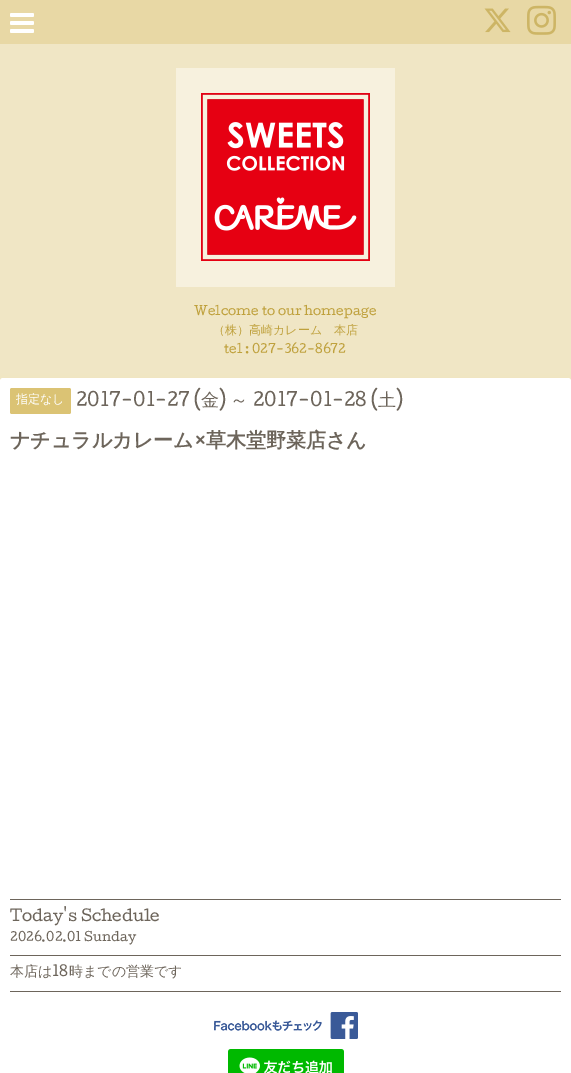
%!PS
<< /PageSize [571 1073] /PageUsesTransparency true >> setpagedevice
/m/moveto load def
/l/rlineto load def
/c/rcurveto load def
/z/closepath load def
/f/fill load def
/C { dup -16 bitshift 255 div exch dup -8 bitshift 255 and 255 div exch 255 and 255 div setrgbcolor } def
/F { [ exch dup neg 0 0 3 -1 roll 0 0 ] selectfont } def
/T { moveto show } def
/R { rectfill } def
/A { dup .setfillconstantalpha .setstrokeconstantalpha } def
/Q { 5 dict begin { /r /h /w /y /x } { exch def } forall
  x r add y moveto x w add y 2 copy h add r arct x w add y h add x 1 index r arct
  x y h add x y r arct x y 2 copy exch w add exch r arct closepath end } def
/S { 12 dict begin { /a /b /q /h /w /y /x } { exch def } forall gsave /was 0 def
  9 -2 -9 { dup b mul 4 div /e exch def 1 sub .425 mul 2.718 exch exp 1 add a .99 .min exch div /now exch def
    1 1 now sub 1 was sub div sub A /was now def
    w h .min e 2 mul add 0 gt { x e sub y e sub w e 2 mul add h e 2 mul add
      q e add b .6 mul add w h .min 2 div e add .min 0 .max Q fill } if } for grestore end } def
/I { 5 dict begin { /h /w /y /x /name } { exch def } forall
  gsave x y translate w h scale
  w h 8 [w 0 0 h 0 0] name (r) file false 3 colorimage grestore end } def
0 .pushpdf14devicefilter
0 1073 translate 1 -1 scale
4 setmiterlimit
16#F0E6C5 C
0 0 571 1073 R
16#E8D8A5 C
0 0 571 44 R
(1.rgb) 10 13 24 20 I
(2.rgb) 484 8 27 25 I
(3.rgb) 527 5 29 30 I
(4.rgb) 176 68 219 219 I
/Cutive-Regular 12 F
16#BFA13D C
(Welcome to our homepage) 194 315 T
/WenQuanYiZenHei-Medium 12 F
(（株）高崎カレーム　本店) 213 334 T
/Cutive-Regular 12 F
(tel : 027-362-8672) 224 353 T
16#E8D8A5 C
0 381 571 500 3 5 .4 S
16#FFFFFF C
3 378 m 565 0 l 1.5 0 3 1.5 3 3 c 0 497 l -571 0 l 0 -497 l 0 -1.5 1.5 -3 3 -3 c z f
16#DBC374 C
10 388 61 26 2 Q f
/WenQuanYiZenHei-Medium 12 F
16#FFFFFF C
(指定なし) 16 403 T
/Cutive-Regular 18 F
16#6D655B C
(2017-01-27 \() 76 406 T
/WenQuanYiZenHei-Medium 18 F
(金) 201 406 T
/Cutive-Regular 18 F
(\)) 219 406 T
/WenQuanYiZenHei-Medium 18 F
(～) 230 406 T
/Cutive-Regular 18 F
(2017-01-28 \() 253 406 T
/WenQuanYiZenHei-Medium 18 F
(土) 378 406 T
/Cutive-Regular 18 F
(\)) 396 406 T
/WenQuanYiZenHei-Bold 20 F
(ナチュラルカレーム) 10 447 T
/Cutive-Bold 20 F
(×) 194 447 T
/WenQuanYiZenHei-Bold 20 F
(草木堂野菜店さん) 206 447 T
16#FFFFFF C
0 878 571 195 R
16#6D655B C
10 899 551 1 R
10 955 551 1 R
/Cutive-Regular 15 F
(Today's Schedule) 10 921 T
/Cutive-Regular 12 F
(2026.02.01 Sunday) 10 941 T
10 991 551 1 R
/WenQuanYiZenHei-Medium 14 F
(本店は) 10 976 T
/Cutive-Regular 14 F
(18) 52 976 T
/WenQuanYiZenHei-Medium 14 F
(時までの営業です) 69 976 T
(5.rgb) 214 1012 144 27 I
(6.rgb) 228 1049 116 24 I
.poppdf14devicefilter showpage
